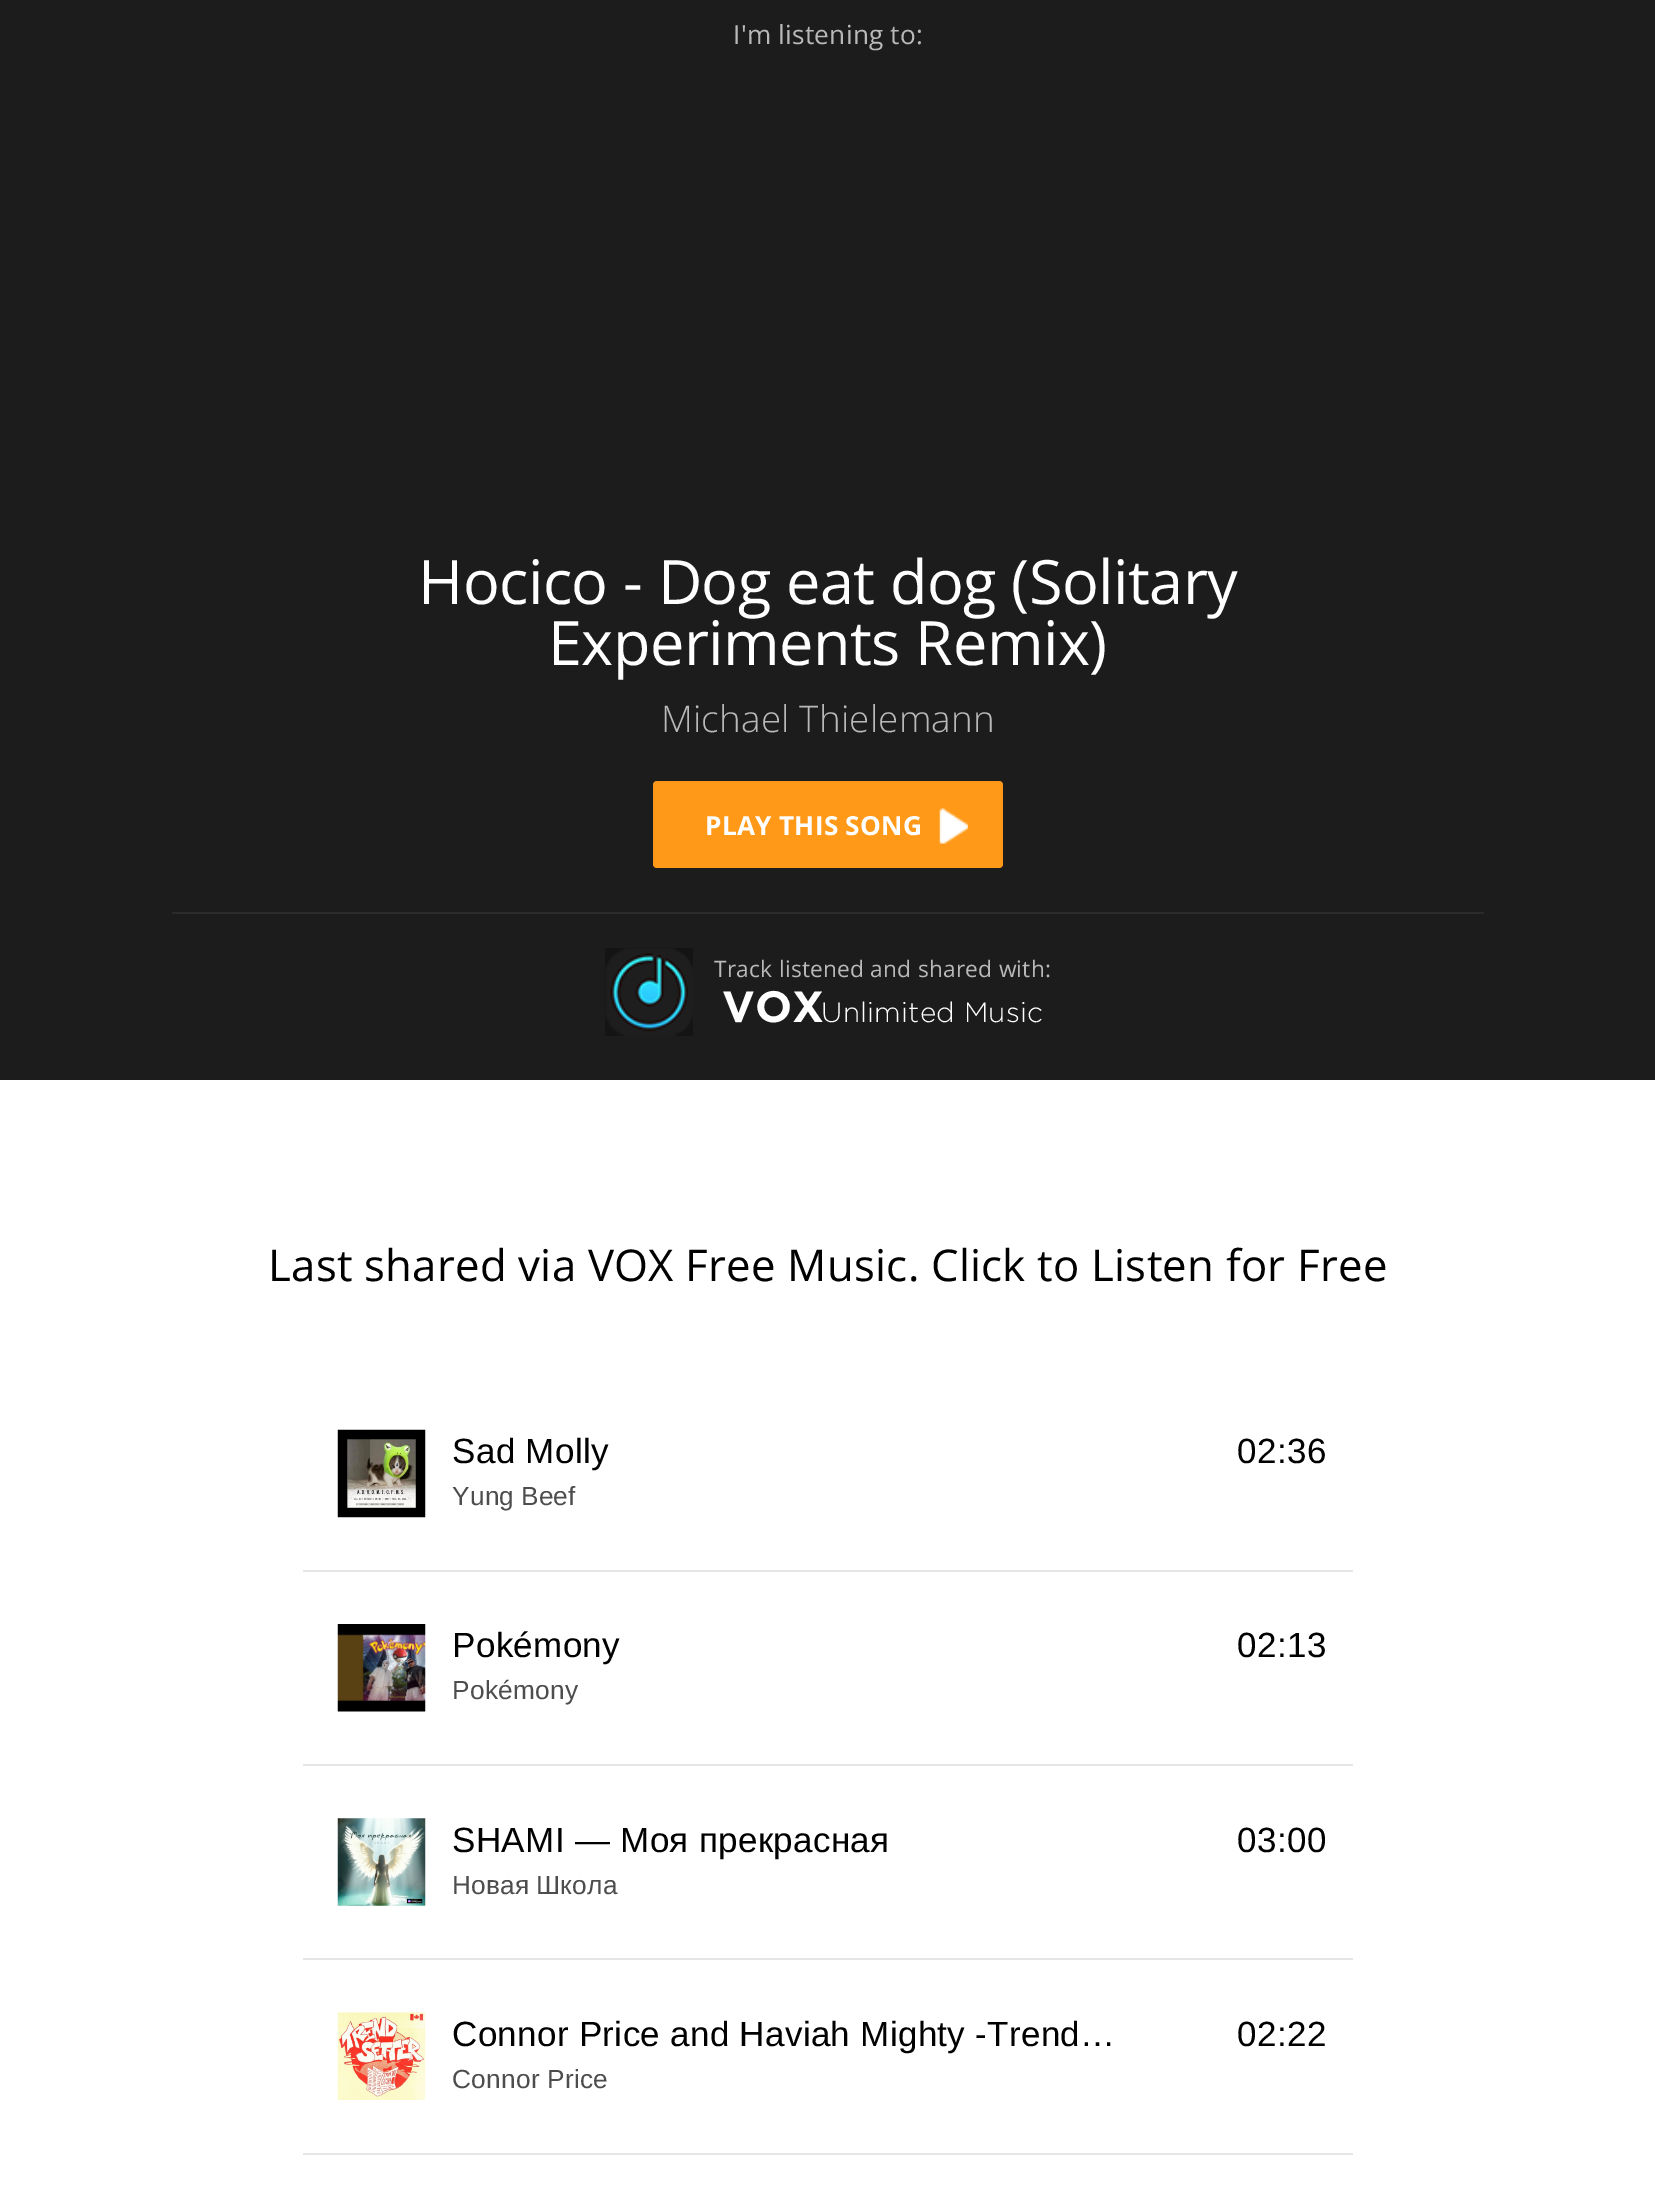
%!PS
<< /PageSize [1655 2199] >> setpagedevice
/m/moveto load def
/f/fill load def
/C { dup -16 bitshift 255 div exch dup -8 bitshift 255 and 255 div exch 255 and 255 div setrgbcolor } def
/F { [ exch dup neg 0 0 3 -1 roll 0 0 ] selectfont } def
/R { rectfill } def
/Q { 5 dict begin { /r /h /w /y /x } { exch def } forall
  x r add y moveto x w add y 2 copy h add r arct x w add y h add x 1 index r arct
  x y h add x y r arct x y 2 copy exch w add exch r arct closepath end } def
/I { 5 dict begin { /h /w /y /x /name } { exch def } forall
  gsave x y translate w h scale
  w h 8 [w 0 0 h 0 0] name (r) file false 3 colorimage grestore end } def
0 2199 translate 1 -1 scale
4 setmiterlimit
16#1C1C1C C
0 0 1655 2199 R
/OpenSans-Regular 26.25 F
16#B9B9B9 C
733 44 m .25 0 (I'm listening to:) ashow
/OpenSans-Regular 61.25 F
16#FFFFFF C
418 604 m -.55 0 (Hocico - Dog eat dog \(Solitary) ashow
548 665 m -.55 0 (Experiments Remix\)) ashow
/OpenSans-Light 36.75 F
16#B9B9B9 C
661 732 m .23 0 (Michael Thielemann) ashow
16#FF9917 C
653 781 350 87 4 Q f
/OpenSans-Bold 26.25 F
16#FFFFFF C
705 835 m .25 0 (PLAY THIS SONG) ashow
(1.rgb) 939 808 29 36 I
16#2B2B2B C
172 912 1312 2 R
(2.rgb) 605 948 88 88 I
/OpenSans-Regular 22.75 F
16#B9B9B9 C
714 977 m .23 0 (Track listened and shared with:) ashow
/Gotham-Bold 43.75 F
16#FFFFFF C
722 1022 m .23 0 (VOX) ashow
/Gotham-Light 28 F
821 1022 m .23 0 (Unlimited Music) ashow
0 1080 1655 1119 R
/OpenSans-Regular 43.75 F
16#000000 C
268 1281 m .23 0 (Last shared via VOX Free Music. Click to Listen for Free) ashow
(3.rgb) 337 1429 89 89 I
/LiberationSans-Regular 35 F
452 1463 m .35 0 (Sad Molly) ashow
/LiberationSans-Regular 26.25 F
16#4D4D4D C
452 1505 m -1 0 32 .25 0 (Yung Beef) awidthshow
/LiberationSans-Regular 35 F
16#000000 C
1237 1463 m .35 0 (02:36) ashow
16#E6E6E6 C
303 1570 1050 2 R
(4.rgb) 337 1624 89 88 I
16#000000 C
452 1657 m .35 0 (Pokémony) ashow
/LiberationSans-Regular 26.25 F
16#4D4D4D C
452 1699 m .25 0 (Pokémony) ashow
/LiberationSans-Regular 35 F
16#000000 C
1237 1657 m .35 0 (02:13) ashow
16#E6E6E6 C
303 1764 1050 2 R
(5.rgb) 337 1818 89 88 I
16#000000 C
452 1852 m .35 0 (SHAMI — Моя прекрасная) ashow
/LiberationSans-Regular 26.25 F
16#4D4D4D C
452 1894 m -1 0 32 .25 0 (Новая Школа) awidthshow
/LiberationSans-Regular 35 F
16#000000 C
1237 1852 m .35 0 (03:00) ashow
16#E6E6E6 C
303 1958 1050 2 R
(6.rgb) 337 2012 89 88 I
16#000000 C
452 2046 m -.25 0 32 .35 0 (Connor Price and Haviah Mighty -Trend…) awidthshow
/LiberationSans-Regular 26.25 F
16#4D4D4D C
452 2088 m .25 0 (Connor Price) ashow
/LiberationSans-Regular 35 F
16#000000 C
1237 2046 m .35 0 (02:22) ashow
16#E6E6E6 C
303 2153 1050 2 R
showpage
